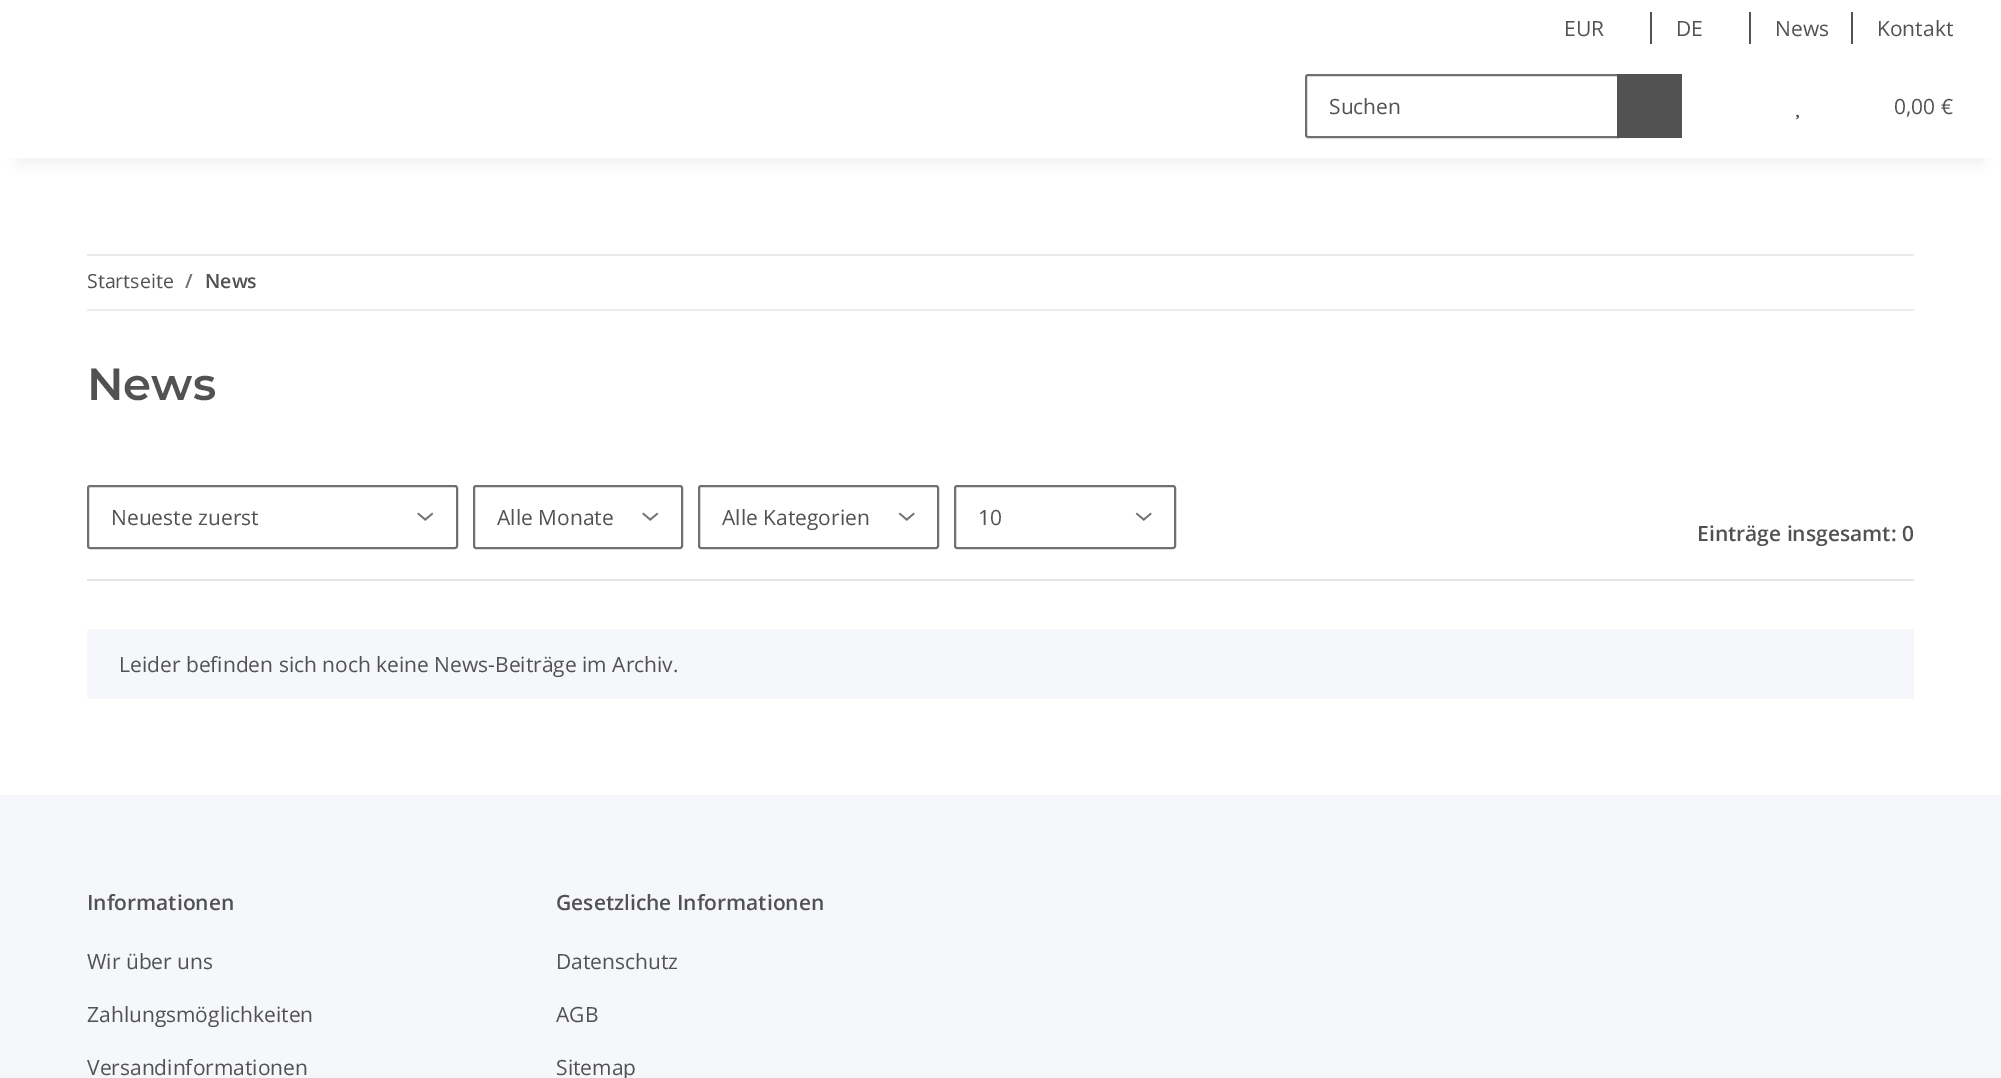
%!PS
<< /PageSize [2001 1078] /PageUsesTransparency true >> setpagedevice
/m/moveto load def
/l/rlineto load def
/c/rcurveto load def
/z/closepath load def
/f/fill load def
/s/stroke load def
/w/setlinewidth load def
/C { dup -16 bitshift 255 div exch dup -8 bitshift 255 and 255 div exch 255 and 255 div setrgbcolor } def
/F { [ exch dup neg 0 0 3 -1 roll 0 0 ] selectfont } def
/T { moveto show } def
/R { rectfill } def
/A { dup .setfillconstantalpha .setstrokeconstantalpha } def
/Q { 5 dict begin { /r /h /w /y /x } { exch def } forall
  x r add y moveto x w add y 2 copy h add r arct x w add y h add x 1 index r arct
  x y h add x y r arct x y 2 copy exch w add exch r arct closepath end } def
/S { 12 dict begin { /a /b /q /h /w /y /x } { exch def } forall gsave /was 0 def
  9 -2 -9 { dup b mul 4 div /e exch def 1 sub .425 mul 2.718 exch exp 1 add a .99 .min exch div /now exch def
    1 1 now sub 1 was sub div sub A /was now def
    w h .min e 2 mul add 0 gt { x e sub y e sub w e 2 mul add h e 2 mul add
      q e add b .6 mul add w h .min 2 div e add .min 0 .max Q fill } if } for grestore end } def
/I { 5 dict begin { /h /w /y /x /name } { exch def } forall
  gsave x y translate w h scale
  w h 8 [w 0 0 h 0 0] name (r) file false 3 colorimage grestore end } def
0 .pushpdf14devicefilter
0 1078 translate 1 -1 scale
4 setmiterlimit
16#F5F7FA C
0 0 2001 1078 R
16#FFFFFF C
0 158 2001 637 R
16#000000 C
18 98 1965 66 0 7 .06 S
16#FFFFFF C
0 0 2001 158 R
/OpenSans-Regular 21 F
16#525252 C
(EUR) 1564 36 T
1650 12 2 32 R
(DE) 1676 36 T
1749 12 2 32 R
(News) 1775 36 T
1851 12 2 32 R
(Kontakt) 1877 36 T
16#707070 C
2 w
1308 75 m 310 0 l 0 62 l -310 0 l -1 0 -2 -1 -2 -2 c 0 -58 l 0 -1 1 -2 2 -2 c z s
16#525252 C
(Suchen) 1329 114 T
1617 74 65 64 R
(1.rgb) 1795 114 4 6 I
(0,00 €) 1894 114 T
16#EBEBEB C
87 254 1827 2 R
87 309 1827 2 R
/OpenSans-Regular 19.5 F
16#525252 C
(Startseite) 87 288 T
/OpenSans-SemiBold 19.5 F
16#707070 C
(/) 185 288 T
16#525252 C
(News) 205 288 T
/Montserrat-SemiBold 45 F
(News) 87 400 T
(2.rgb) 417 512 17 9 I
16#707070 C
88 486 369 62 2 Q s
/OpenSans-Regular 21 F
16#525252 C
(Neueste zuerst) 111 525 T
(2.rgb) 642 512 17 9 I
16#707070 C
474 486 208 62 2 Q s
16#525252 C
(Alle Monate) 497 525 T
(3.rgb) 898 512 17 9 I
16#707070 C
699 486 239 62 2 Q s
16#525252 C
(Alle Kategorien) 722 525 T
(3.rgb) 1135 512 17 9 I
16#707070 C
955 486 220 62 2 Q s
16#525252 C
(10) 978 525 T
/OpenSans-SemiBold 21 F
(Einträge insgesamt: 0) 1697 541 T
16#E6E6E6 C
87 579 1827 2 R
16#F5F7FA C
87 629 1827 70 3 Q f
/OpenSans-Regular 21 F
16#525252 C
(Leider befinden sich noch keine News-Beiträge im Archiv.) 119 672 T
/OpenSans-SemiBold 21 F
(Informationen) 87 910 T
/OpenSans-Regular 21 F
(Wir über uns) 87 969 T
(Zahlungsmöglichkeiten) 87 1022 T
(Versandinformationen) 87 1075 T
/OpenSans-SemiBold 21 F
(Gesetzliche Informationen) 556 910 T
/OpenSans-Regular 21 F
(Datenschutz) 556 969 T
(AGB) 556 1022 T
(Sitemap) 556 1075 T
.poppdf14devicefilter showpage
